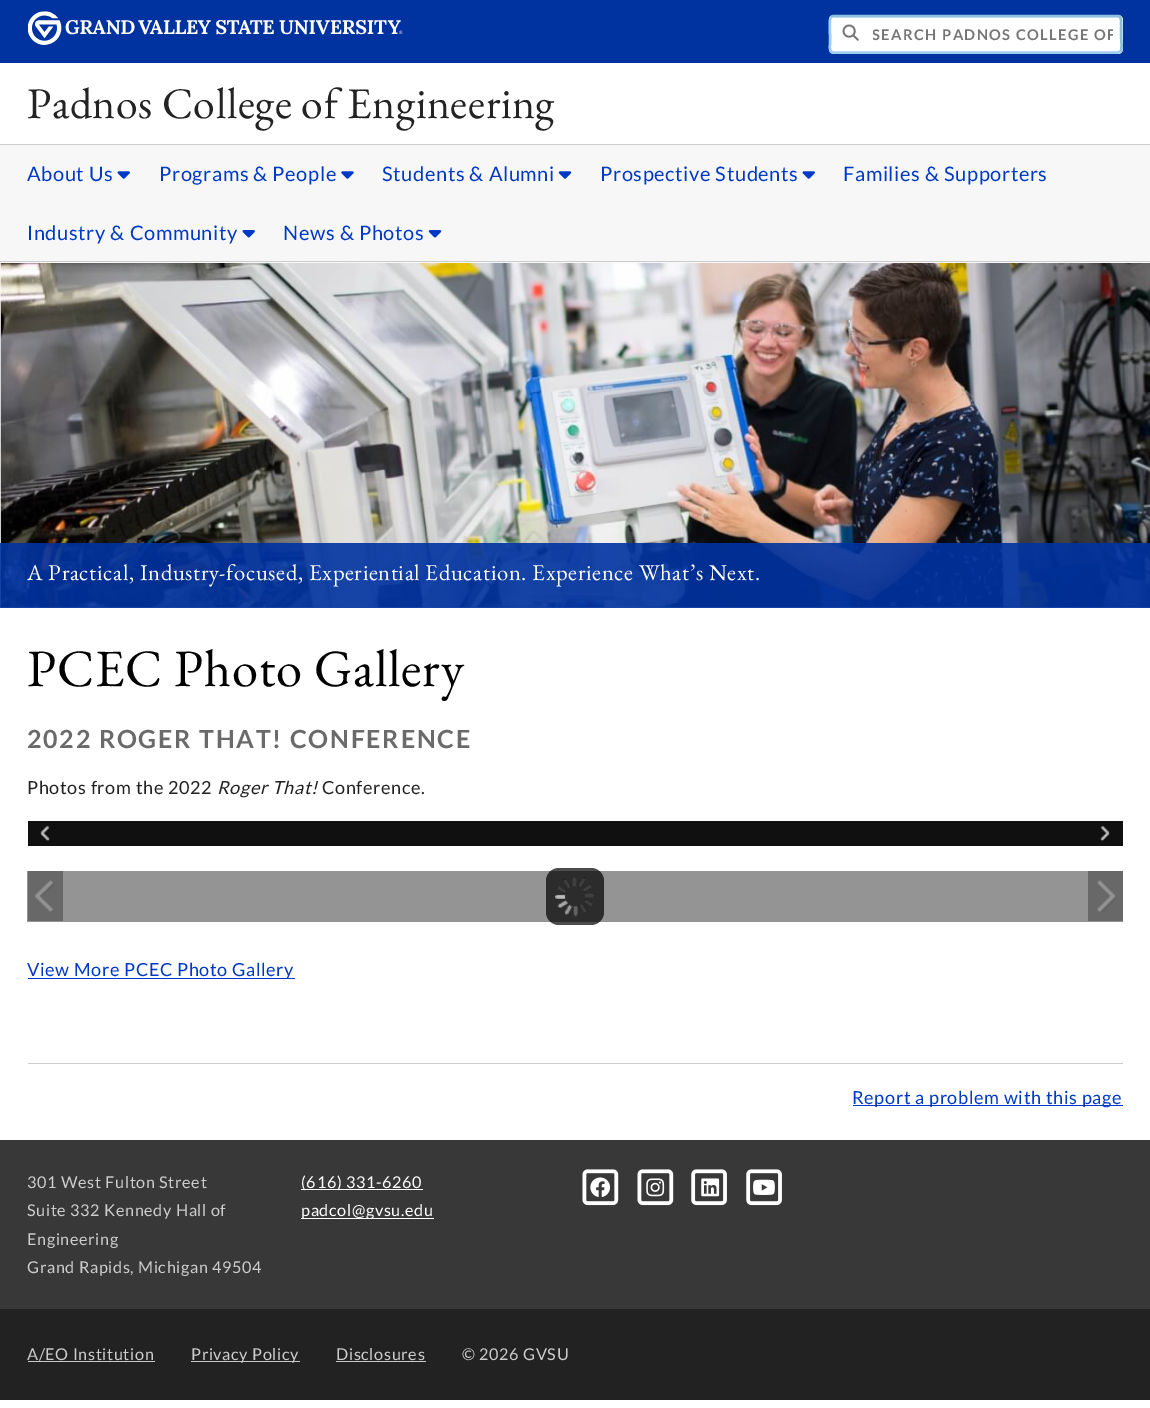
%!PS
<< /PageSize [1150 1408] /PageUsesTransparency true >> setpagedevice
/m/moveto load def
/l/rlineto load def
/c/rcurveto load def
/f/fill load def
/s/stroke load def
/q/gsave load def
/Q_/grestore load def
/w/setlinewidth load def
/C { dup -16 bitshift 255 div exch dup -8 bitshift 255 and 255 div exch 255 and 255 div setrgbcolor } def
/F { [ exch dup neg 0 0 3 -1 roll 0 0 ] selectfont } def
/R { rectfill } def
/A { dup .setfillconstantalpha .setstrokeconstantalpha } def
/Q { 5 dict begin { /r /h /w /y /x } { exch def } forall
  x r add y moveto x w add y 2 copy h add r arct x w add y h add x 1 index r arct
  x y h add x y r arct x y 2 copy exch w add exch r arct closepath end } def
/I { 5 dict begin { /h /w /y /x /name } { exch def } forall
  gsave x y translate w h scale
  w h 8 [w 0 0 h 0 0] name (r) file false 3 colorimage grestore end } def
0 .pushpdf14devicefilter
0 1408 translate 1 -1 scale
4 setmiterlimit
16#FFFFFF C
0 0 1150 1408 R
16#0032A0 C
0 0 1150 63 R
(1.rgb) 28 11 375 34 I
16#FFFFFF C
829 15 294 39 5 Q f
16#8FBFDF C
2.5 w
831 17 m 2.5 -1 l 284.5 0 l 4 .5 3 6 3 8.5 c 0 10 l 0 3 1.5 15 -.5 17 c s
16#9FCFEF C
1120.5 51.5 m -2.5 1 l -284.5 0 l -4.5 0 -3.5 -5.5 -3.5 -8 c 0 -10 l 0 -3 -1 -15 1 -17.5 c s
(2.rgb) 842 24 17 17 I
q
873 25 240 19 rectclip
/Lato-Bold 14.7 F
16#767676 C
872 40 m 1.4 0 (SEARCH PADNOS COLLEGE OF) ashow
Q_
/EBGaramond-Regular 43.75 F
16#232323 C
27 118 m .5 0 (Padnos College of Engineering) ashow
16#F7F7F7 C
0 145 1150 118 R
16#CCCCCC C
0 144 1150 1 R
0 261 1150 1 R
/Lato-Regular 20 F
16#0039C5 C
27 181 m .62 0 (About Us) ashow
(3.rgb) 117 171 13 8 I
159 181 m .62 0 (Programs & People) ashow
(4.rgb) 341 171 13 8 I
382 181 m .62 0 (Students & Alumni) ashow
(5.rgb) 558 171 14 8 I
600 181 m .62 0 (Prospective Students) ashow
(3.rgb) 802 171 13 8 I
843 181 m .62 0 (Families & Supporters) ashow
27 240 m .62 0 (Industry & Community) ashow
(6.rgb) 242 230 13 8 I
283 240 m .62 0 (News & Photos) ashow
(7.rgb) 428 230 14 8 I
(8.rgb) 0 263 1150 345 I
0.9 A
16#0032A0 C
0 543 1150 65 R
/EBGaramond-Regular 22.65 F
1 A
16#FFFFFF C
27 580 m .62 0 (A Practical, Industry-focused, Experiential Education. Experience What’s Next.) ashow
/EBGaramond-Regular 52.5 F
16#000000 C
27 686 m .75 0 (PCEC Photo Gallery) ashow
/Lato-Bold 25 F
16#6A6A6A C
27 748 m 1.75 0 (2022 ROGER THAT! CONFERENCE) ashow
/Lato-Regular 18.1 F
16#232323 C
27 794 m .62 0 (Photos from the 2022) ashow
/Lato-Italic 18.1 F
217 794 m .62 0 (Roger That!) ashow
/Lato-Regular 18.1 F
322 794 m .62 0 (Conference.) ashow
16#101010 C
28 821 1095 25 R
(9.rgb) 40 825 10 17 I
(10.rgb) 1100 825 10 17 I
16#949494 C
27 871 1096 51 R
0.7 A
16#000000 C
546 868 58 57 13 Q f
1 A
(11.rgb) 555 876 40 41 I
16#686868 C
28 871 35 50 R
(12.rgb) 34 880 20 33 I
1088 871 35 50 R
(13.rgb) 1097 880 19 33 I
16#0039C5 C
28 978 267 1 R
27 976 m .62 0 (View More PCEC Photo Gallery) ashow
16#CCCCCC C
28 1063 1095 1 R
16#0039C5 C
853 1105 270 1 R
852 1104 m .62 0 (Report a problem with this page) ashow
16#383838 C
0 1140 1150 169 R
/Lato-Regular 16.25 F
16#CECDCD C
27 1188 m .62 0 (301 West Fulton Street) ashow
27 1216 m .62 0 (Suite 332 Kennedy Hall of) ashow
27 1245 m .62 0 (Engineering) ashow
27 1273 m .62 0 (Grand Rapids, Michigan 49504) ashow
16#FFFFFF C
301 1189 122 1 R
301 1188 m .62 0 (\(616\) 331-6260) ashow
301 1218 133 1 R
301 1216 m .62 0 (padcol@gvsu.edu) ashow
(14.rgb) 582 1169 37 37 I
(15.rgb) 590 1177 21 21 I
(14.rgb) 637 1169 37 37 I
(16.rgb) 646 1178 19 19 I
(17.rgb) 691 1169 36 37 I
(18.rgb) 701 1178 19 19 I
(17.rgb) 746 1169 36 37 I
(19.rgb) 753 1179 22 16 I
16#222222 C
0 1309 1150 91 R
16#CECDCD C
27 1360 m .62 0 (A/EO Institution) ashow
16#C9C9C9 C
28 1361 127 1 R
191 1361 109 1 R
16#CECDCD C
191 1360 m .62 0 (Privacy Policy) ashow
336 1360 m .62 0 (Disclosures) ashow
16#C9C9C9 C
336 1361 90 1 R
16#CECDCD C
462 1360 m .62 0 (© 2026 GVSU) ashow
.poppdf14devicefilter showpage
